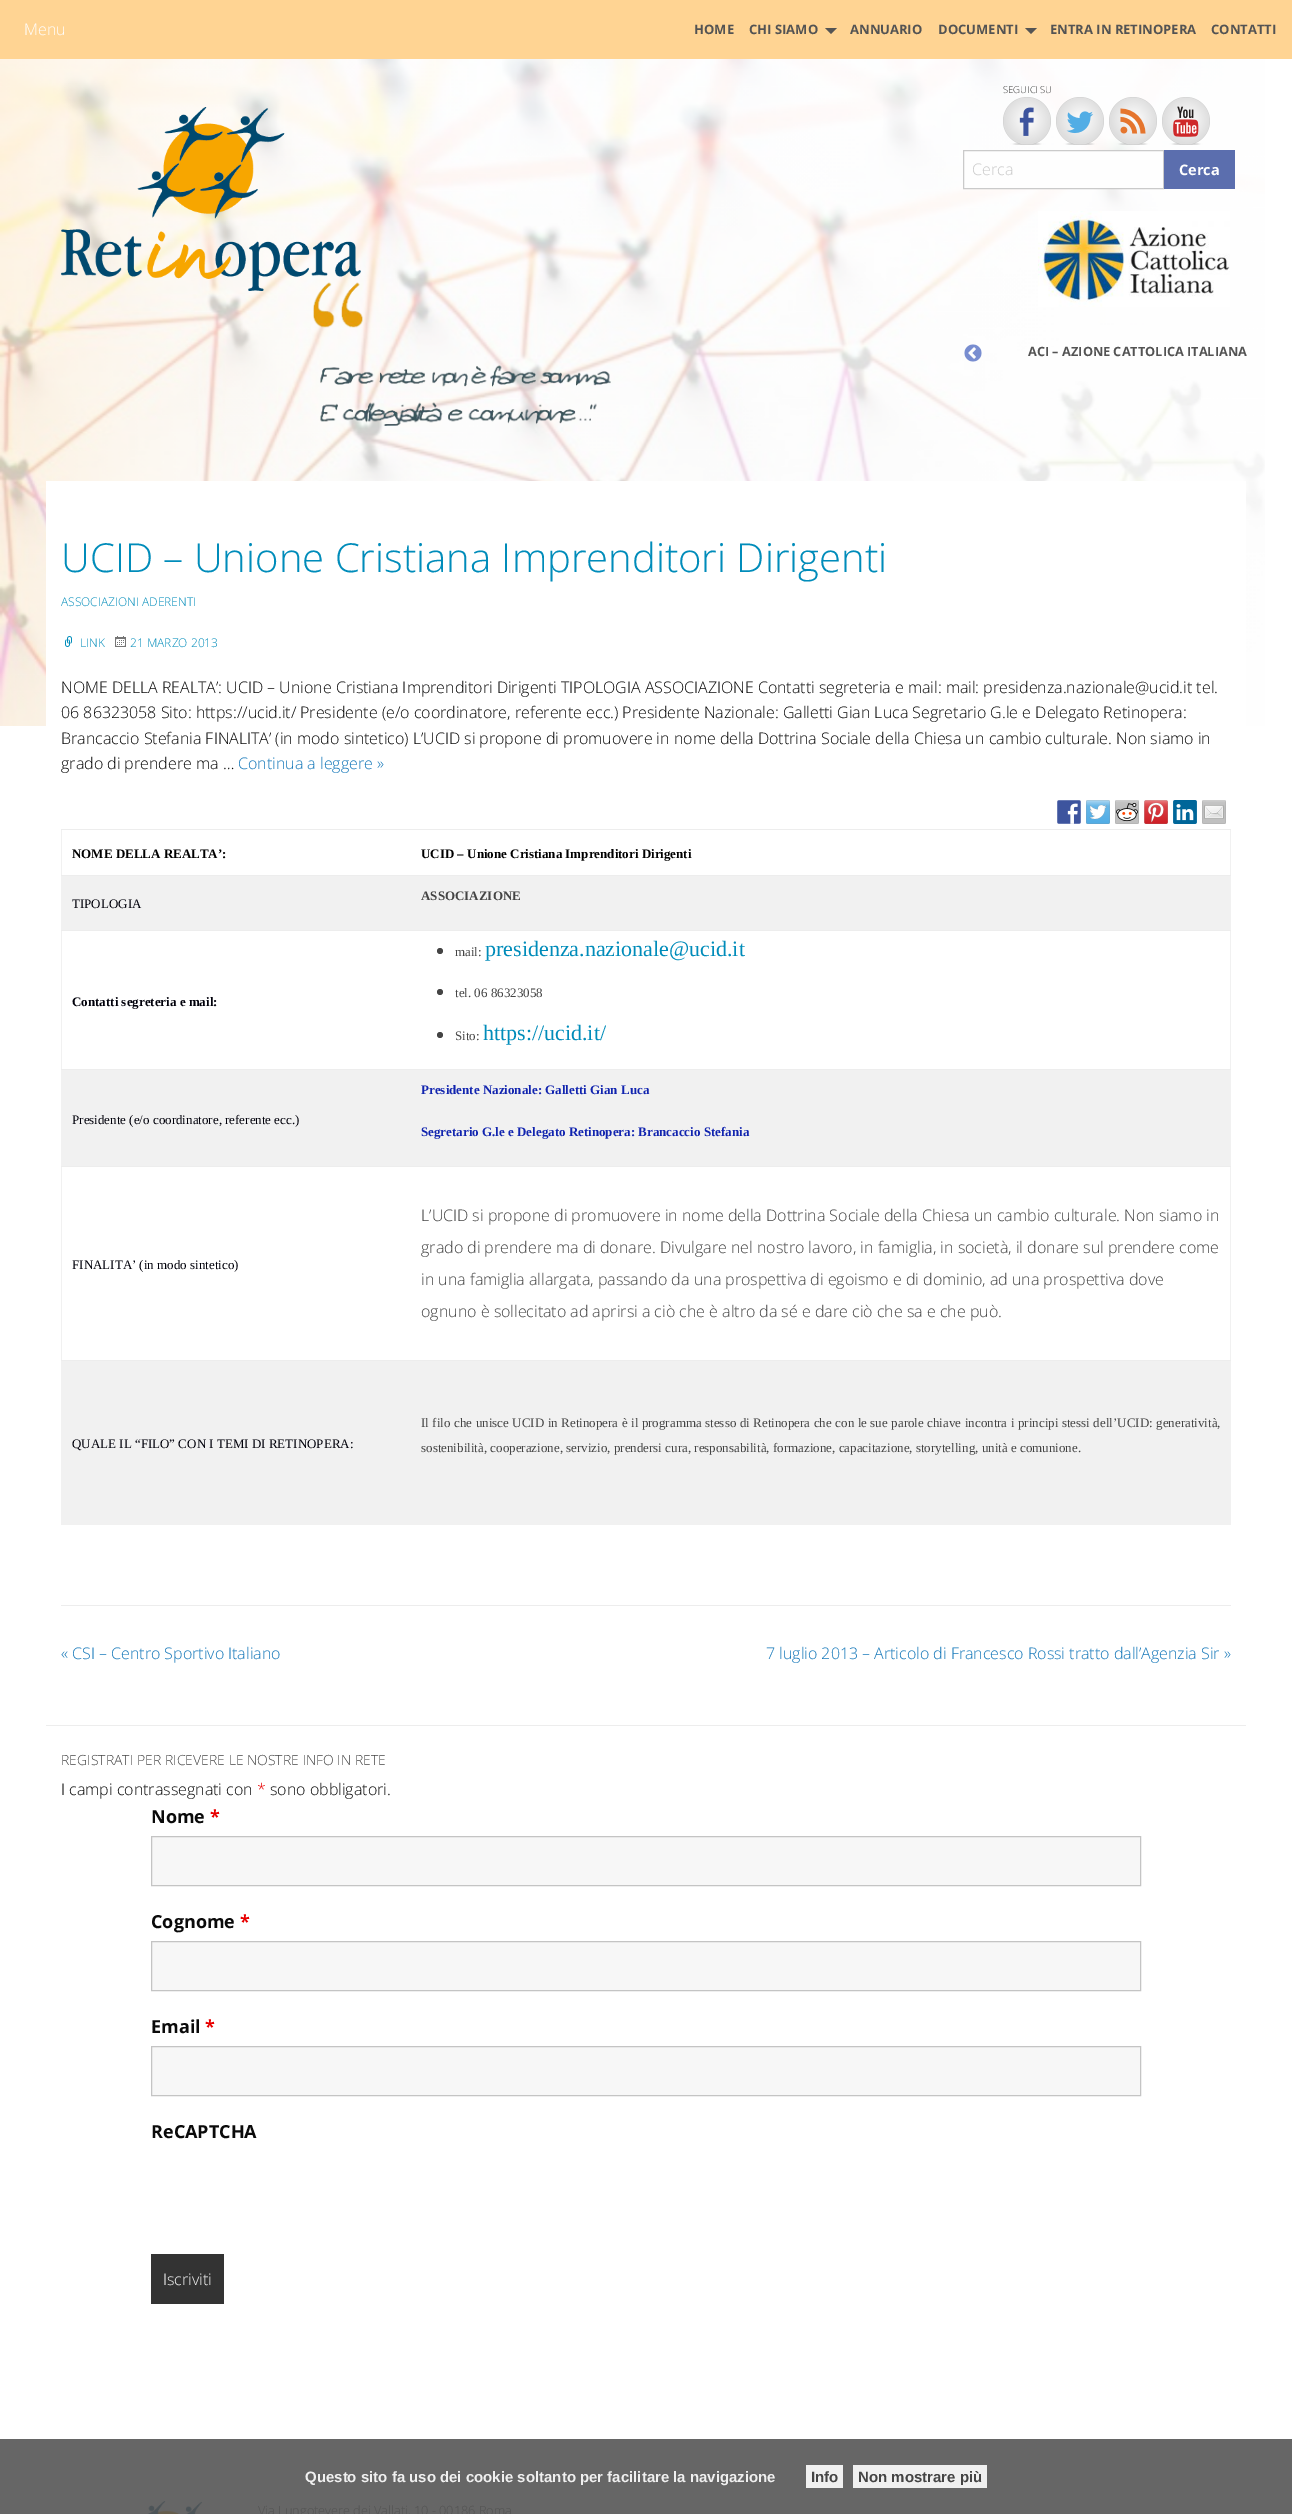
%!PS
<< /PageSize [1292 2514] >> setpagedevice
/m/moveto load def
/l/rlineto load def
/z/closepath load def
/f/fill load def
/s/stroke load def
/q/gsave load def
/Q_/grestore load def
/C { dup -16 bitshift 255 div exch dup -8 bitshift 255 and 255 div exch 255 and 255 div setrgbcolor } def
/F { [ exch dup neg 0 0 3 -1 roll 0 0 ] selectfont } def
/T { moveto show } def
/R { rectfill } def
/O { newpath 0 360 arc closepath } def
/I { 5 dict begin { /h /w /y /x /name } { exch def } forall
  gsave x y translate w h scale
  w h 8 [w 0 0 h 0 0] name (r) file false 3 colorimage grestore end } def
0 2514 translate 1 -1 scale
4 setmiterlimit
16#FFFFFF C
0 0 1292 2514 R
16#666666 C
0 2439 1292 75 R
(1.rgb) 0 59 1265 667 I
16#FFD493 C
0 0 1292 59 R
/OpenSans-Light 16 F
16#FFFFFF C
(Menu) 24 35 T
/OpenSans-Bold 13 F
16#535353 C
(HOME) 694 34 T
(CHI SIAMO) 749 34 T
16#545454 C
825 28 m 12 0 l -6 6 l z f
16#535353 C
(ANNUARIO) 850 34 T
(DOCUMENTI) 938 34 T
16#545454 C
1025 28 m 12 0 l -6 6 l z f
16#535353 C
(ENTRA IN RETINOPERA) 1050 34 T
(CONTATTI) 1211 34 T
(2.rgb) 313 282 298 144 I
(3.rgb) 61 107 300 184 I
/OpenSans-Light 9.5 F
16#444444 C
(SEGUICI SU) 1003 93 T
(4.rgb) 1003 97 48 48 I
(5.rgb) 1056 97 48 48 I
(6.rgb) 1109 97 48 48 I
(7.rgb) 1162 97 48 48 I
16#FEFEFE C
963.5 150.5 m 200 0 l 0 38 l -200 0 l z q f Q_
16#CACACA C
s
/OpenSans-Light 16 F
(Cerca) 972 175 T
16#5B6EAE C
1164 150 71 39 R
/OpenSans-Bold 14.5 F
16#FFFFFF C
(Cerca) 1179 175 T
(8.rgb) 964 344 18 18 I
(9.rgb) 1038 211 192 96 I
/OpenSans-Bold 12.75 F
16#535353 C
(ACI – AZIONE CATTOLICA ITALIANA) 1028 356 T
16#FFFFFF C
46 481 1200 245 R
16#EDEDED C
61 1605 1170 1 R
/OpenSans-Light 40 F
16#008CBA C
(UCID – Unione Cristiana Imprenditori Dirigenti) 61 572 T
/OpenSans-Light 12 F
(ASSOCIAZIONI ADERENTI) 61 606 T
(10.rgb) 65 636 7 11 I
(LINK) 80 647 T
(11.rgb) 115 636 11 11 I
(21 MARZO 2013) 130 647 T
/OpenSans-Light 16 F
16#0A0A0A C
(NOME DELLA REALTA’: UCID – Unione Cristiana Imprenditori Dirigenti TIPOLOGIA ASSOCIAZIONE Contatti segreteria e mail: mail: presidenza.nazionale@ucid.it tel.) 61 693 T
(06 86323058 Sito: https://ucid.it/ Presidente \(e/o coordinatore, referente ecc.\) Presidente Nazionale: Galletti Gian Luca Segretario G.le e Delegato Retinopera:) 61 718 T
(Brancaccio Stefania FINALITA’ \(in modo sintetico\) L’UCID si propone di promuovere in nome della Dottrina Sociale della Chiesa un cambio culturale. Non siamo in) 61 744 T
(grado di prendere ma …) 61 769 T
16#1779BA C
(Continua a leggere ») 238 769 T
(12.rgb) 1057 800 24 24 I
(13.rgb) 1086 800 24 24 I
(14.rgb) 1115 800 24 24 I
(15.rgb) 1144 800 24 24 I
(16.rgb) 1173 800 24 24 I
(17.rgb) 1202 800 24 24 I
16#F1F1F1 C
1230 829 1 696 R
61 1524 1170 1 R
61 829 1 696 R
/LiberationSerif-Bold 13 F
16#000000 C
(NOME DELLA REALTA’:) 72 858 T
16#EDEDED C
61 829 1170 1 R
16#000000 C
(UCID – Unione Cristiana Imprenditori Dirigenti) 421 858 T
16#F1F1F1 C
62 876 1168 54 R
16#EDEDED C
61 875 1170 1 R
16#444444 C
(ASSOCIAZIONE) 421 900 T
/LiberationSerif-Regular 13 F
16#00000A C
(TIPOLOGIA) 72 908 T
/LiberationSerif-Bold 13 F
(Contatti segreteria e mail:) 72 1006 T
16#EDEDED C
61 930 1170 1 R
16#444444 C
440 951 3 O f
/LiberationSerif-Regular 13 F
(mail:) 455 956 T
/LiberationSerif-Regular 22 F
16#008CBA C
(presidenza.nazionale@ucid.it) 485 956 T
16#444444 C
440 992 3 O f
/LiberationSerif-Regular 13 F
(tel. 06 86323058) 455 997 T
440 1035 3 O f
(Sito:) 455 1040 T
/LiberationSerif-Regular 22 F
16#008CBA C
(https://ucid.it/) 483 1040 T
16#F1F1F1 C
62 1070 1168 96 R
/LiberationSerif-Regular 13 F
16#00000A C
(Presidente \(e/o coordinatore, referente ecc.\)) 72 1124 T
16#EDEDED C
61 1069 1170 1 R
/LiberationSerif-Bold 13 F
16#1124AF C
(Presidente Nazionale: Galletti Gian Luca) 421 1094 T
(Segretario G.le e Delegato Retinopera: Brancaccio Stefania) 421 1136 T
/LiberationSerif-Regular 13 F
16#00000A C
(FINALITA’ \(in modo sintetico\)) 72 1269 T
16#EDEDED C
61 1166 1170 1 R
/OpenSans-Light 16 F
16#444444 C
(L’UCID si propone di promuovere in nome della Dottrina Sociale della Chiesa un cambio culturale. Non siamo in) 421 1221 T
(grado di prendere ma di donare. Divulgare nel nostro lavoro, in famiglia, in società, il donare sul prendere come) 421 1253 T
(in una famiglia allargata, passando da una prospettiva di egoismo e di dominio, ad una prospettiva dove) 421 1285 T
(ognuno è sollecitato ad aprirsi a ciò che è altro da sé e dare ciò che sa e che può.) 421 1317 T
16#F1F1F1 C
62 1361 1168 163 R
/LiberationSerif-Regular 13 F
16#00000A C
(QUALE IL “FILO” CON I TEMI DI RETINOPERA:) 72 1448 T
16#EDEDED C
61 1360 1170 1 R
16#444444 C
421 1427 m .25 0 32 (Il filo che unisce UCID in Retinopera è il programma stesso di Retinopera che con le sue parole chiave incontra i principi stessi dell’UCID: generatività,) widthshow
(sostenibilità, cooperazione, servizio, prendersi cura, responsabilità, formazione, capacitazione, storytelling, unità e comunione.) 421 1452 T
/OpenSans-Light 16 F
16#1779BA C
(« CSI – Centro Sportivo Italiano) 61 1659 T
(7 luglio 2013 – Articolo di Francesco Rossi tratto dall’Agenzia Sir ») 766 1659 T
16#EDEDED C
46 1725 1200 1 R
/OpenSans-Light 14 F
16#444444 C
(REGISTRATI PER RICEVERE LE NOSTRE INFO IN RETE) 61 1765 T
/OpenSans-Light 16 F
16#0A0A0A C
(I campi contrassegnati con) 61 1795 T
16#E80000 C
(*) 257 1795 T
16#0A0A0A C
(sono obbligatori.) 270 1795 T
/OpenSans-Bold 18 F
(Nome) 151 1823 T
16#E80000 C
(*) 210 1823 T
16#F7F7F7 C
151.5 1836.5 m 989 0 l 0 49 l -989 0 l z q f Q_
16#C4C4C4 C
s
16#0A0A0A C
(Cognome) 151 1928 T
16#E80000 C
(*) 240 1928 T
16#F7F7F7 C
151.5 1941.5 m 989 0 l 0 49 l -989 0 l z q f Q_
16#C4C4C4 C
s
16#0A0A0A C
(Email) 151 2033 T
16#E80000 C
(*) 205 2033 T
16#F7F7F7 C
151.5 2046.5 m 989 0 l 0 49 l -989 0 l z q f Q_
16#C4C4C4 C
s
16#0A0A0A C
(ReCAPTCHA) 151 2138 T
16#333333 C
151 2254 73 50 R
/OpenSans-Light 16 F
16#F7F7F7 C
(Iscriviti) 163 2285 T
/LiberationSans-Bold 15 F
16#F0F0F0 C
(Questo sito fa uso dei cookie soltanto per facilitare la navigazione) 305 2482 T
806 2465 37 23 R
16#444444 C
(Info) 811 2482 T
16#F0F0F0 C
853 2465 134 23 R
16#444444 C
(Non mostrare più) 858 2482 T
(18.rgb) 147 2501 56 13 I
/OpenSans-Light 12.75 F
16#535353 C
(Via Lungotevere dei Vallati, 10 - 00186 Roma) 258 2515 T
showpage
